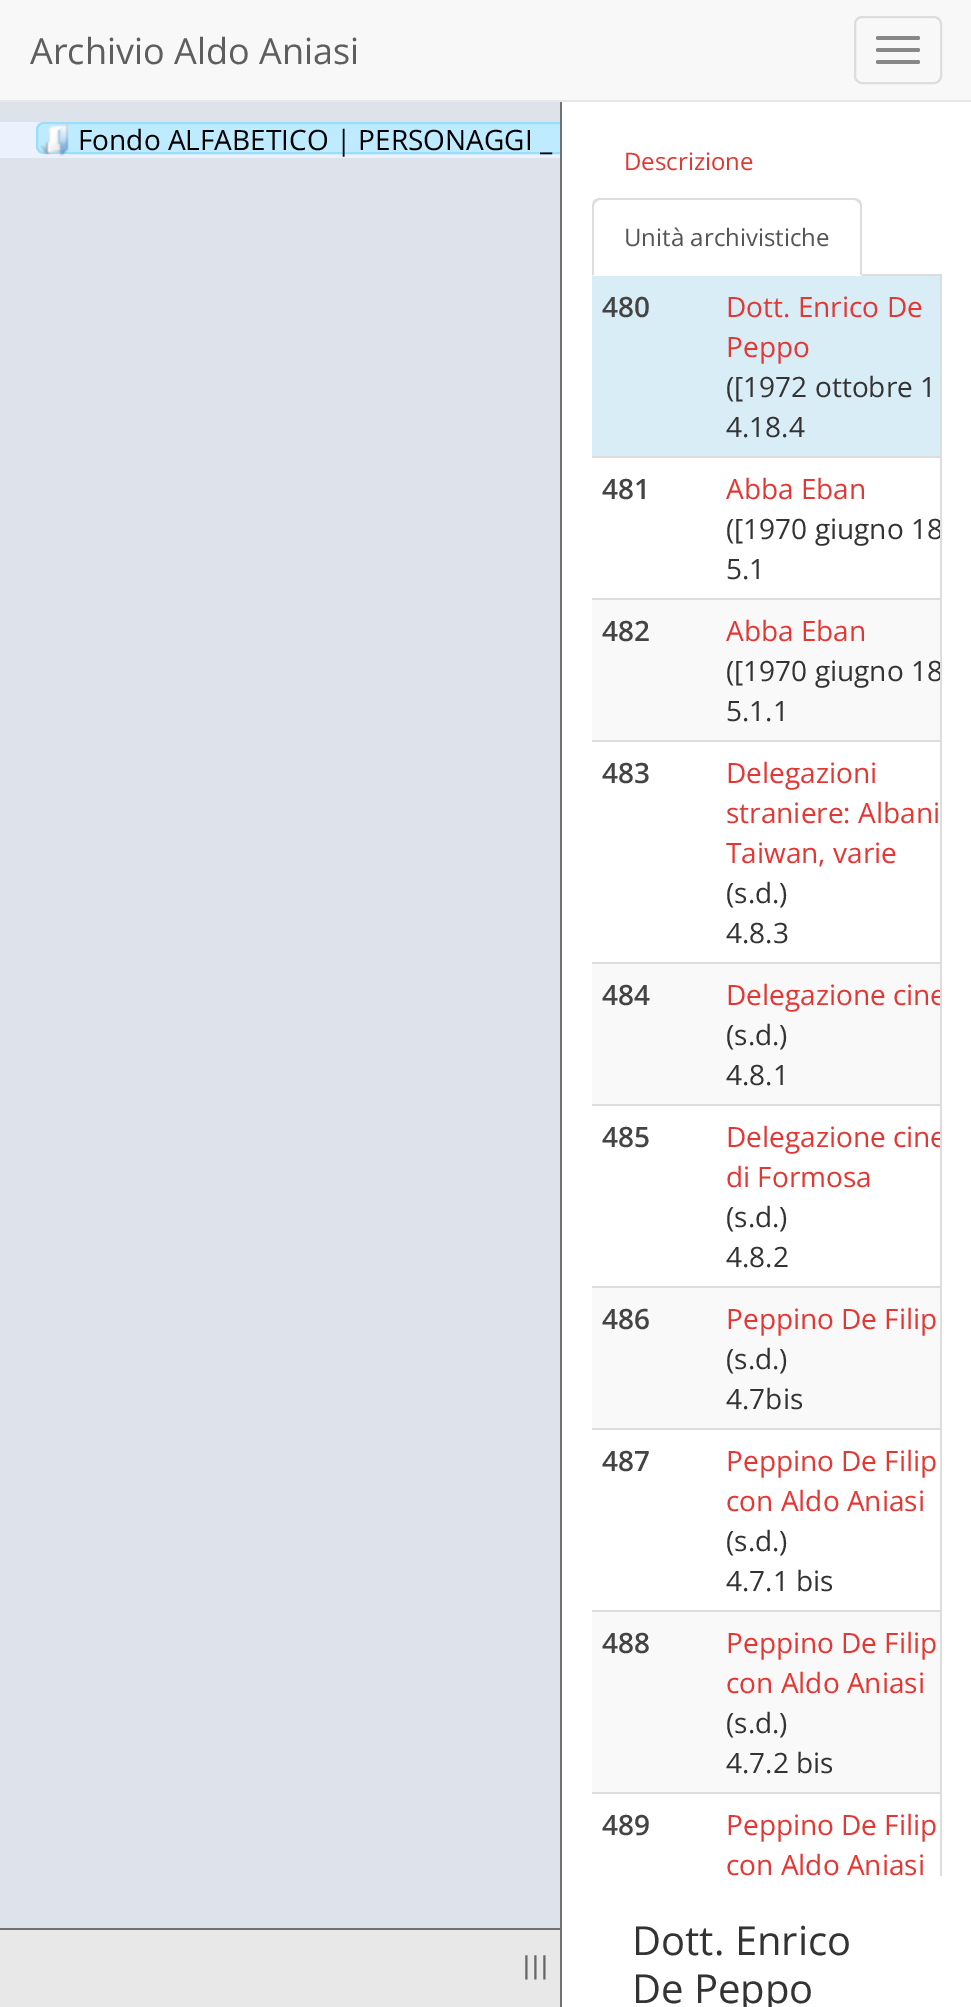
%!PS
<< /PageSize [971 2007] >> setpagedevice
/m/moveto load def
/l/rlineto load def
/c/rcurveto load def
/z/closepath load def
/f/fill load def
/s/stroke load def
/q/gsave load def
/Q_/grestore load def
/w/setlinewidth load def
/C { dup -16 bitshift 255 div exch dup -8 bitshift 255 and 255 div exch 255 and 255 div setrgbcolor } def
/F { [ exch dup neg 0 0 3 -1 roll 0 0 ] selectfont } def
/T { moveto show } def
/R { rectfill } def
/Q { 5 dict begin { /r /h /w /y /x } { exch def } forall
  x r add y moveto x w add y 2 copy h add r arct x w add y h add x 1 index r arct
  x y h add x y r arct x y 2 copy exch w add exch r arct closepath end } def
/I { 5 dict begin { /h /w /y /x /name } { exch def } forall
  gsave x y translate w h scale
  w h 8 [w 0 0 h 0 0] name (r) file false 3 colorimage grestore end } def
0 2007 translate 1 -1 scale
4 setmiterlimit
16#FFFFFF C
0 0 971 2007 R
16#F8F8F8 C
0 0 971 100 R
16#E7E7E7 C
0 100 971 2 R
/OpenSans-Regular 36 F
16#5E5E5E C
(Archivio Aldo Aniasi) 30 64 T
16#DDDDDD C
2 w
855 17 86 66 7 Q s
16#888888 C
876 36 44 4 2 Q f
876 48 44 4 2 Q f
876 60 44 4 2 Q f
16#DDE2EB C
0 102 560 1826 R
16#EBF1FD C
0 122 560 36 R
16#BEEBFF C
44 122 m 516 0 l 0 32 l -516 0 l -4.5 0 -8 -3.5 -8 -8 c 0 -16 l 0 -4.5 3.5 -8 8 -8 c z f
q
0 102 560 1832 rectclip
16#99DEFD C
37 123 876 30 7 Q s
Q_
(1.rgb) 40 124 29 32 I
/OpenSans-Regular 28 F
16#000000 C
(Fondo ALFABETICO | PERSONAGGI _) 78 150 T
16#E8E8E8 C
0 1930 560 77 R
16#717171 C
0 1928 560 2 R
/LiberationSans-Regular 26 F
16#666666 C
523 1974 m 2 0 (|||) ashow
16#717171 C
560 102 2 1905 R
16#DDDDDD C
862 274 80 2 R
/OpenSans-Regular 24 F
16#E33733 C
(Descrizione) 624 170 T
16#DDDDDD C
600 198 m -2 0 -4 1 -6 2 c 2 2 l 1 -1 2 -2 4 -2 c 254 0 l 2 0 3 1 4 2 c 2 -2 l -2 -1 -4 -2 -6 -2 c z f
862 276 m 0 -70 l 0 -2 -1 -4 -2 -6 c -2 2 l 1 1 2 2 2 4 c 0 68 l z f
592 276 m 2 -2 l 0 -68 l 0 -2 1 -3 2 -4 c -2 -2 l -1 2 -2 4 -2 6 c z f
16#555555 C
(Unità archivistiche) 624 246 T
16#DDDDDD C
940 276 2 1600 R
16#D9EDF7 C
592 276 348 180 R
/OpenSans-SemiBold 28 F
16#444444 C
(480) 602 317 T
/OpenSans-Regular 28 F
16#E33733 C
(Dott. Enrico De) 726 317 T
(Peppo) 726 357 T
16#333333 C
(\([1972 ottobre 1) 726 397 T
(4.18.4) 726 437 T
/OpenSans-SemiBold 28 F
16#444444 C
(481) 602 499 T
16#DDDDDD C
592 456 348 2 R
/OpenSans-Regular 28 F
16#E33733 C
(Abba Eban) 726 499 T
q
592 276 348 1600 rectclip
16#333333 C
(\([1970 giugno 18) 726 539 T
Q_
16#333333 C
(5.1) 726 579 T
16#F9F9F9 C
592 600 348 140 R
/OpenSans-SemiBold 28 F
16#444444 C
(482) 602 641 T
16#DDDDDD C
592 598 348 2 R
/OpenSans-Regular 28 F
16#E33733 C
(Abba Eban) 726 641 T
q
592 276 348 1600 rectclip
16#333333 C
(\([1970 giugno 18) 726 681 T
Q_
16#333333 C
(5.1.1) 726 721 T
/OpenSans-SemiBold 28 F
16#444444 C
(483) 602 783 T
16#DDDDDD C
592 740 348 2 R
/OpenSans-Regular 28 F
16#E33733 C
(Delegazioni) 726 783 T
(straniere: Albani) 726 823 T
(Taiwan, varie) 726 863 T
16#333333 C
(\(s.d.\)) 726 903 T
(4.8.3) 726 943 T
16#F9F9F9 C
592 964 348 140 R
/OpenSans-SemiBold 28 F
16#444444 C
(484) 602 1005 T
16#DDDDDD C
592 962 348 2 R
q
592 276 348 1600 rectclip
/OpenSans-Regular 28 F
16#E33733 C
(Delegazione cine) 726 1005 T
Q_
/OpenSans-Regular 28 F
16#333333 C
(\(s.d.\)) 726 1045 T
(4.8.1) 726 1085 T
/OpenSans-SemiBold 28 F
16#444444 C
(485) 602 1147 T
16#DDDDDD C
592 1104 348 2 R
q
592 276 348 1600 rectclip
/OpenSans-Regular 28 F
16#E33733 C
(Delegazione cine) 726 1147 T
Q_
/OpenSans-Regular 28 F
16#E33733 C
(di Formosa) 726 1187 T
16#333333 C
(\(s.d.\)) 726 1227 T
(4.8.2) 726 1267 T
16#F9F9F9 C
592 1288 348 140 R
/OpenSans-SemiBold 28 F
16#444444 C
(486) 602 1329 T
16#DDDDDD C
592 1286 348 2 R
/OpenSans-Regular 28 F
16#E33733 C
(Peppino De Filip) 726 1329 T
16#333333 C
(\(s.d.\)) 726 1369 T
(4.7bis) 726 1409 T
/OpenSans-SemiBold 28 F
16#444444 C
(487) 602 1471 T
16#DDDDDD C
592 1428 348 2 R
/OpenSans-Regular 28 F
16#E33733 C
(Peppino De Filip) 726 1471 T
(con Aldo Aniasi) 726 1511 T
16#333333 C
(\(s.d.\)) 726 1551 T
(4.7.1 bis) 726 1591 T
16#F9F9F9 C
592 1612 348 180 R
/OpenSans-SemiBold 28 F
16#444444 C
(488) 602 1653 T
16#DDDDDD C
592 1610 348 2 R
/OpenSans-Regular 28 F
16#E33733 C
(Peppino De Filip) 726 1653 T
(con Aldo Aniasi) 726 1693 T
16#333333 C
(\(s.d.\)) 726 1733 T
(4.7.2 bis) 726 1773 T
/OpenSans-SemiBold 28 F
16#444444 C
(489) 602 1835 T
16#DDDDDD C
592 1792 348 2 R
/OpenSans-Regular 28 F
16#E33733 C
(Peppino De Filip) 726 1835 T
(con Aldo Aniasi) 726 1875 T
/OpenSans-Regular 40 F
16#333333 C
(Dott. Enrico) 632 1955 T
(De Peppo) 632 2003 T
showpage
